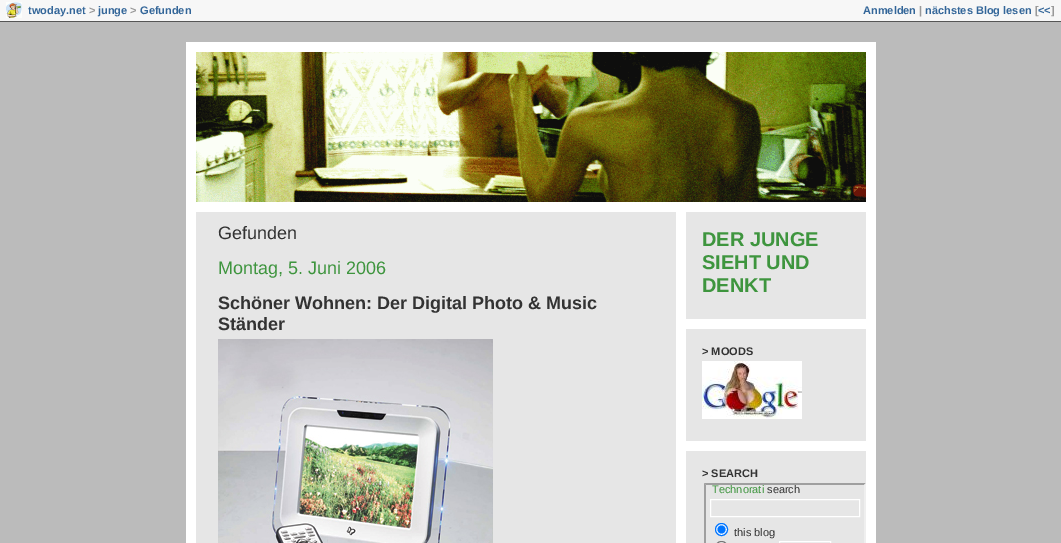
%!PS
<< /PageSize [1061 543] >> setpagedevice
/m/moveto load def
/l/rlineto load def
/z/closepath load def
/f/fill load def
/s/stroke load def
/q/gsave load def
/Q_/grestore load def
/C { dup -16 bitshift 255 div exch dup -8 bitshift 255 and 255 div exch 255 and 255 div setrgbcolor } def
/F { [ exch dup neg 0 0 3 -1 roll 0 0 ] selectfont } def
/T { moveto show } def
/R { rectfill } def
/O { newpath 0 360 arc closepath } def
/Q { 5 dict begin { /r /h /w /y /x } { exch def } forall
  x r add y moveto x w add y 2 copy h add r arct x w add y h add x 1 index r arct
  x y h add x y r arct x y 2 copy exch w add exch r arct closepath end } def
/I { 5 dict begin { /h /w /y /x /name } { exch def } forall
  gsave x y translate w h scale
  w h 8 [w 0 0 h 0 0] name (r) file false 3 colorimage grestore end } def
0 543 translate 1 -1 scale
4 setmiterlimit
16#BBBBBB C
0 0 1061 543 R
16#F7F7F7 C
0 0 1061 21 R
16#555555 C
0 21 1061 1 R
(1.rgb) 6 2 16 16 I
/LiberationSans-Bold 11 F
16#336699 C
(twoday.net) 28 14 T
16#999999 C
(>) 89 14 T
16#336699 C
(junge) 98 14 T
16#999999 C
(>) 130 14 T
16#336699 C
(Gefunden) 140 14 T
(Anmelden) 863 14 T
16#999999 C
(|) 919 14 T
16#336699 C
(nächstes Blog lesen) 925 14 T
16#999999 C
([) 1035 14 T
16#336699 C
(<<) 1038 14 T
16#999999 C
(]) 1051 14 T
16#FFFFFF C
186 42 690 501 R
(2.rgb) 196 52 670 150 I
16#E6E6E6 C
196 212 670 331 R
16#FFFFFF C
676 212 10 331 R
/LiberationSans-Regular 18 F
16#333333 C
(Gefunden) 218 239 T
16#3E953E C
(Montag, 5. Juni 2006) 218 274 T
/LiberationSans-Bold 18 F
16#333333 C
(Schöner Wohnen: Der Digital Photo & Music) 218 309 T
(Ständer) 218 330 T
(3.rgb) 218 339 275 204 I
16#FFFFFF C
686 319 180 10 R
/LiberationSans-Bold 20 F
16#3E953E C
(DER JUNGE) 702 246 T
(SIEHT UND) 702 269 T
(DENKT) 702 292 T
16#FFFFFF C
686 441 180 10 R
/LiberationSans-Bold 11 F
16#333333 C
(> MOODS) 702 355 T
(4.rgb) 702 361 100 58 I
(> SEARCH) 702 477 T
16#9F9F9F C
704 483 m 162 0 l -2 2 l -158 0 l z f
16#EFEFEF C
866 483 m 0 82 l -2 -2 l 0 -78 l z f
16#9F9F9F C
704 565 m 0 -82 l 2 2 l 0 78 l z f
/LiberationSans-Regular 11 F
16#3E953E C
(Technorati) 712 493 T
16#333333 C
(search) 767 493 T
16#FFFFFF C
710.5 499.5 149 17 rectstroke
721.5 529.5 6 O q f Q_
16#0075FF C
s
721.5 529.5 4 O f
16#333333 C
(this blog) 734 536 T
16#FFFFFF C
715.5 541.5 12 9 6 Q q f Q_
16#767676 C
s
16#FFFFFF C
779.5 541.5 51 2 rectstroke
showpage
